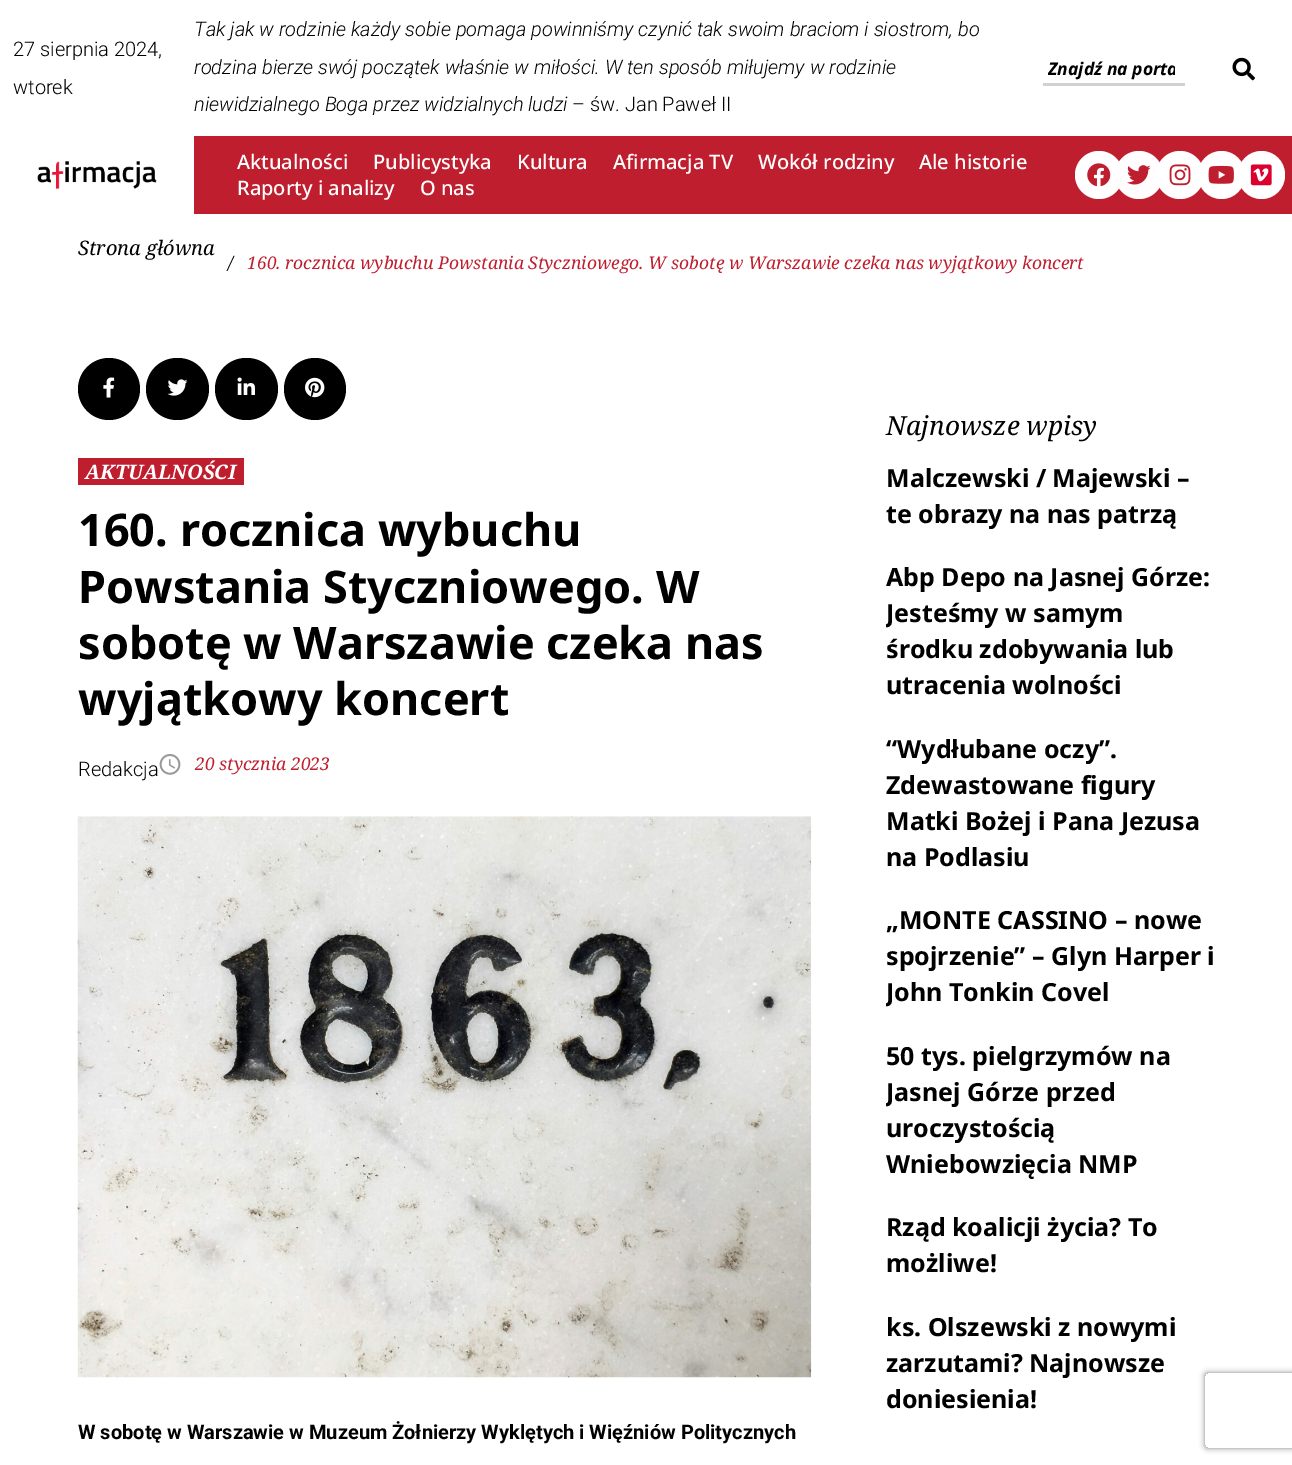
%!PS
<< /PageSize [1292 1465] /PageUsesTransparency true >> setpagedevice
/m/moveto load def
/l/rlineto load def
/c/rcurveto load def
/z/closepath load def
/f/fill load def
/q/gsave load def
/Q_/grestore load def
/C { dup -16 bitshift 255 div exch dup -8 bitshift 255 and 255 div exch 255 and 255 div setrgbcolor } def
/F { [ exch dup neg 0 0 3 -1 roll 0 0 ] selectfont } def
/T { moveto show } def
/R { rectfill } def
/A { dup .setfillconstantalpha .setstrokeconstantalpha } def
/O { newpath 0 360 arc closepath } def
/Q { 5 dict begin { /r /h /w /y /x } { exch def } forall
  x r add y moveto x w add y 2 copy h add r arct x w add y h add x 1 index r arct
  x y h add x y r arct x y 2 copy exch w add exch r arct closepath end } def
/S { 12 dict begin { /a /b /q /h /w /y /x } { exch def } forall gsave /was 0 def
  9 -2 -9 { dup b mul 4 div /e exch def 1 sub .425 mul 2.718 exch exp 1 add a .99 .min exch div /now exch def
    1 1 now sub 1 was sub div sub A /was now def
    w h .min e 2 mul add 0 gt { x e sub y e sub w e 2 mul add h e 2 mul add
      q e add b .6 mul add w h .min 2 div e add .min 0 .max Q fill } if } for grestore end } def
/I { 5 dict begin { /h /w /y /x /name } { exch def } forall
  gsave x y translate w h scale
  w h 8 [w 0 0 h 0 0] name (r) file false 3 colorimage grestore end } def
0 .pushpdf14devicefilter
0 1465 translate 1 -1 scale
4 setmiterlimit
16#FFFFFF C
0 0 1292 1465 R
/Roboto-Light 20 F
16#000000 C
(27 sierpnia 2024,) 13 56 T
(wtorek) 13 94 T
/Roboto-LightItalic 20 F
(Tak jak w rodzinie każdy sobie pomaga powinniśmy czynić tak swoim braciom i siostrom, bo) 194 36 T
(rodzina bierze swój początek właśnie w miłości. W ten sposób miłujemy w rodzinie) 194 74 T
(niewidzialnego Boga przez widzialnych ludzi) 194 111 T
/Roboto-Light 20 F
(– św. Jan Paweł II) 572 111 T
16#D2D1D1 C
1043 83 142 3 R
q
1048 56 127 24 rectclip
/NotoSans-BoldItalic 17.5 F
16#000000 C
(Znajdź na porta) 1048 75 T
Q_
(1.rgb) 1232 57 23 24 I
16#BF1E2E C
194 136 1098 78 R
(2.rgb) 37 161 120 28 I
/NotoSans-Medium 20 F
16#FFFFFF C
(Aktualności) 237 169 T
(Publicystyka) 373 169 T
(Kultura) 517 169 T
(Afirmacja TV) 613 169 T
(Wokół rodziny) 758 169 T
(Ale historie) 919 169 T
(Raporty i analizy) 237 195 T
(O nas) 420 195 T
1099 175 24 O f
(3.rgb) 1087 163 24 24 I
16#FFFDFD C
1139 175 24 O f
(4.rgb) 1127 165 24 20 I
16#FFFFFF C
1180 175 24 O f
(5.rgb) 1169 164 22 22 I
1198 151 47 48 23.5 Q f
(6.rgb) 1208 165 26 19 I
1238 151 47 48 23.5 Q f
(7.rgb) 1250 164 22 22 I
/NotoSerif-Italic 20 F
16#000000 C
(Strona główna) 78 255 T
/NotoSerif-Italic 17.5 F
(/) 228 269 T
16#BF1E2E C
(160. rocznica wybuchu Powstania Styczniowego. W sobotę w Warszawie czeka nas wyjątkowy koncert) 247 269 T
16#000000 C
109 389 31 O f
(8.rgb) 103 377 12 21 I
146 358 63 62 31 Q f
(9.rgb) 167 379 21 17 I
215 358 63 62 31 Q f
(10.rgb) 237 377 18 18 I
315 389 31 O f
(11.rgb) 305 377 20 21 I
16#BF1E2E C
78 458 166 27 R
/NotoSerif-BoldItalic 20 F
16#FFFFFF C
(AKTUALNOŚCI) 85 479 T
/NotoSans-Bold 45 F
16#000000 C
(160. rocznica wybuchu) 78 546 T
(Powstania Styczniowego. W) 78 603 T
(sobotę w Warszawie czeka nas) 78 659 T
(wyjątkowy koncert) 78 715 T
/Roboto-Light 20 F
(Redakcja) 78 776 T
(12.rgb) 159 754 22 21 I
/NotoSerif-Italic 17.5 F
16#BF1E2E C
(20 stycznia 2023) 195 770 T
(13.rgb) 77 816 735 562 I
/Roboto-Bold 20 F
16#000000 C
(W sobotę w Warszawie w Muzeum Żołnierzy Wyklętych i Więźniów Politycznych) 78 1439 T
/NotoSerif-Italic 26.25 F
(Najnowsze wpisy) 886 435 T
/NotoSans-Bold 25 F
(Malczewski / Majewski –) 886 487 T
(te obrazy na nas patrzą) 886 523 T
(Abp Depo na Jasnej Górze:) 886 586 T
q
886 390 329 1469 rectclip
(Jesteśmy w samym) 886 622 T
Q_
(środku zdobywania lub) 886 658 T
(utracenia wolności) 886 694 T
(“Wydłubane oczy”.) 886 758 T
(Zdewastowane figury) 886 794 T
(Matki Bożej i Pana Jezusa) 886 830 T
(na Podlasiu) 886 866 T
(„MONTE CASSINO – nowe) 886 929 T
(spojrzenie” – Glyn Harper i) 886 965 T
q
886 390 329 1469 rectclip
(John Tonkin Covel) 886 1001 T
Q_
(50 tys. pielgrzymów na) 886 1065 T
q
886 390 329 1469 rectclip
(Jasnej Górze przed) 886 1101 T
Q_
(uroczystością) 886 1137 T
(Wniebowzięcia NMP) 886 1173 T
(Rząd koalicji życia? To) 886 1236 T
(możliwe!) 886 1272 T
(ks. Olszewski z nowymi) 886 1336 T
(zarzutami? Najnowsze) 886 1372 T
(doniesienia!) 886 1408 T
q
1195 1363 m 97 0 l 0 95 l -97 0 l z 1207.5 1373 m 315 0 l 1.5 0 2.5 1 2.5 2.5 c 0 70 l 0 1.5 -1 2.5 -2.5 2.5 c -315 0 l -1.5 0 -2.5 -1 -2.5 -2.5 c 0 -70 l 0 -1.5 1 -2.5 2.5 -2.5 c z eoclip newpath
16#808080 C
1205 1373 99 75 2.5 3 1 S
Q_
.poppdf14devicefilter showpage
